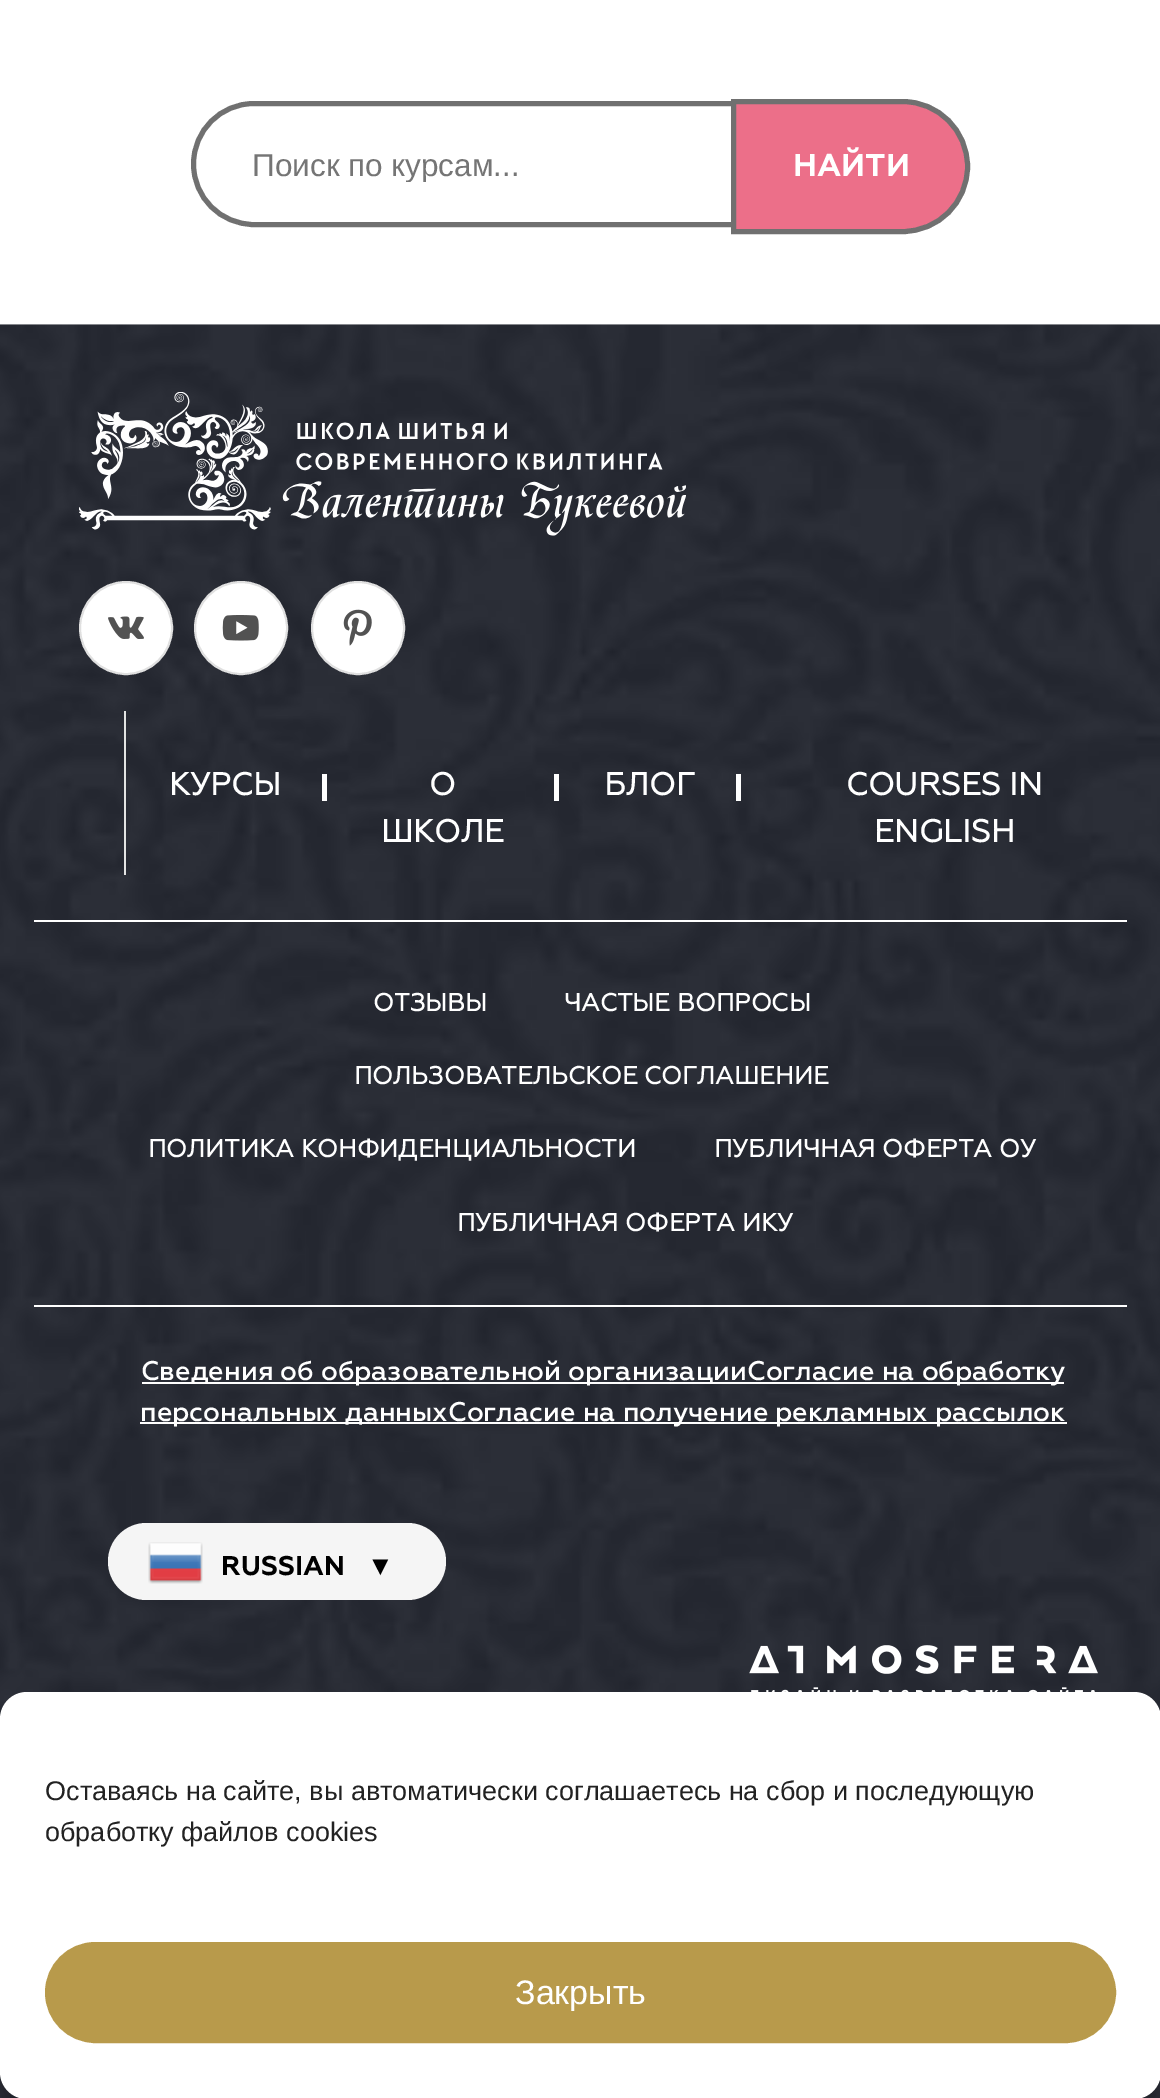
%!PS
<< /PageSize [1160 2098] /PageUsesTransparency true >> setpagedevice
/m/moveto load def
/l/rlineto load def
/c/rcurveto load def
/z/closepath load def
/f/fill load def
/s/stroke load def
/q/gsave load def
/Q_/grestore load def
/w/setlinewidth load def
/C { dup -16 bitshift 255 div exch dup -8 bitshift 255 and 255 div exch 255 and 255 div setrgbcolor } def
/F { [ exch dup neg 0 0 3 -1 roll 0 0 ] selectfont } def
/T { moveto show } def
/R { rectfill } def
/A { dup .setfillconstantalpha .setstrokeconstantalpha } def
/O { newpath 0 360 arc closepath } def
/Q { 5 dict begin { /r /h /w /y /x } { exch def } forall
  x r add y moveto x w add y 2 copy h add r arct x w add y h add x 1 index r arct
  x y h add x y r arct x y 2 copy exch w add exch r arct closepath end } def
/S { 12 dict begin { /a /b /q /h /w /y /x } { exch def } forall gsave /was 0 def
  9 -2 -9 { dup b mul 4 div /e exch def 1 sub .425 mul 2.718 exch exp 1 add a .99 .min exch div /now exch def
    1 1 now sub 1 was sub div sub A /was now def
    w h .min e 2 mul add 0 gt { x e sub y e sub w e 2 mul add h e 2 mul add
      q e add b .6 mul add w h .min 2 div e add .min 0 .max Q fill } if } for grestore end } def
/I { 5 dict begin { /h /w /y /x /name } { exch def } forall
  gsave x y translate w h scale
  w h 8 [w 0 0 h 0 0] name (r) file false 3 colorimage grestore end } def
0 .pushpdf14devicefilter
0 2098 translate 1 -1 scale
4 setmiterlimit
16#FFFFFF C
0 0 1160 2098 R
16#707070 C
5 w
254 103.5 m 481.5 0 l 0 121 l -481.5 0 l -33.5 0 -60.5 -27 -60.5 -60.5 c 0 -33.5 27 -60.5 60.5 -60.5 c z s
q
252 146 425 36 rectclip
/LiberationSans-Regular 31.5 F
16#757575 C
(Поиск по курсам...) 252 176 T
Q_
16#EC6F89 C
733.5 101.5 m 169 0 l 36 0 65 29 65 65 c 0 36 -29 65 -65 65 c -169 0 l z q f Q_
16#707070 C
s
/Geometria-Bold 31.5 F
16#FFFFFF C
(НАЙТИ) 793 176 T
(1.rgb) 0 324 1160 1774 I
(2.rgb) 79 392 607 144 I
126 628 46 O q f Q_
16#E0E0E0 C
2 w
s
(3.rgb) 108 616 36 23 I
16#FFFFFF C
241 628 46 O q f Q_
16#E0E0E0 C
s
(4.rgb) 222 615 37 26 I
16#FFFFFF C
358 628 46 O q f Q_
16#E0E0E0 C
s
(5.rgb) 343 609 29 37 I
16#E3E4E3 C
124 711 2 164 R
/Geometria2-Bold 31.5 F
16#FFFFFF C
(КУРСЫ) 169 795 T
322 774 5 27 R
(О) 429 795 T
554 774 5 27 R
(ШКОЛЕ) 381 842 T
(БЛОГ) 604 795 T
736 774 5 27 R
(COURSES IN) 846 795 T
(ENGLISH) 874 842 T
34 920 1093 2 R
34 1305 1093 2 R
/Geometria2-Bold 24.75 F
(ОТЗЫВЫ) 373 1011 T
(ЧАСТЫЕ ВОПРОСЫ) 564 1011 T
(ПОЛЬЗОВАТЕЛЬСКОЕ СОГЛАШЕНИЕ) 354 1084 T
(ПОЛИТИКА КОНФИДЕНЦИАЛЬНОСТИ) 148 1157 T
(ПУБЛИЧНАЯ ОФЕРТА ОУ) 714 1157 T
(ПУБЛИЧНАЯ ОФЕРТА ИКУ) 457 1231 T
142 1382 922 2 R
/Geometria-Medium 27 F
(Сведения об образовательной организацииСогласие на обработку) 141 1380 T
140 1422 927 2 R
(персональных данныхСогласие на получение рекламных рассылок) 140 1421 T
16#F5F5F5 C
108 1523 338 77 38.5 Q f
(6.rgb) 148 1542 55 42 I
/Geometria-Bold 27 F
16#000000 C
(RUSSIAN) 221 1575 T
/LiberationSerif-Bold 27 F
(▼) 367 1575 T
(7.rgb) 749 1645 349 47 I
0 1706 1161 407 27 7 .23 S
16#FFFFFF C
0 1692 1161 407 27 Q f
/LiberationSans-Regular 27 F
16#222222 C
(Оставаясь на сайте, вы автоматически соглашаетесь на сбор и последующую) 45 1800 T
(обработку файлов cookies) 45 1841 T
16#B89A4B C
46 1943 1069 99 49.5 Q q f Q_
s
/LiberationSans-Regular 34 F
16#FFFFFF C
(Закрыть) 515 2004 T
.poppdf14devicefilter showpage
